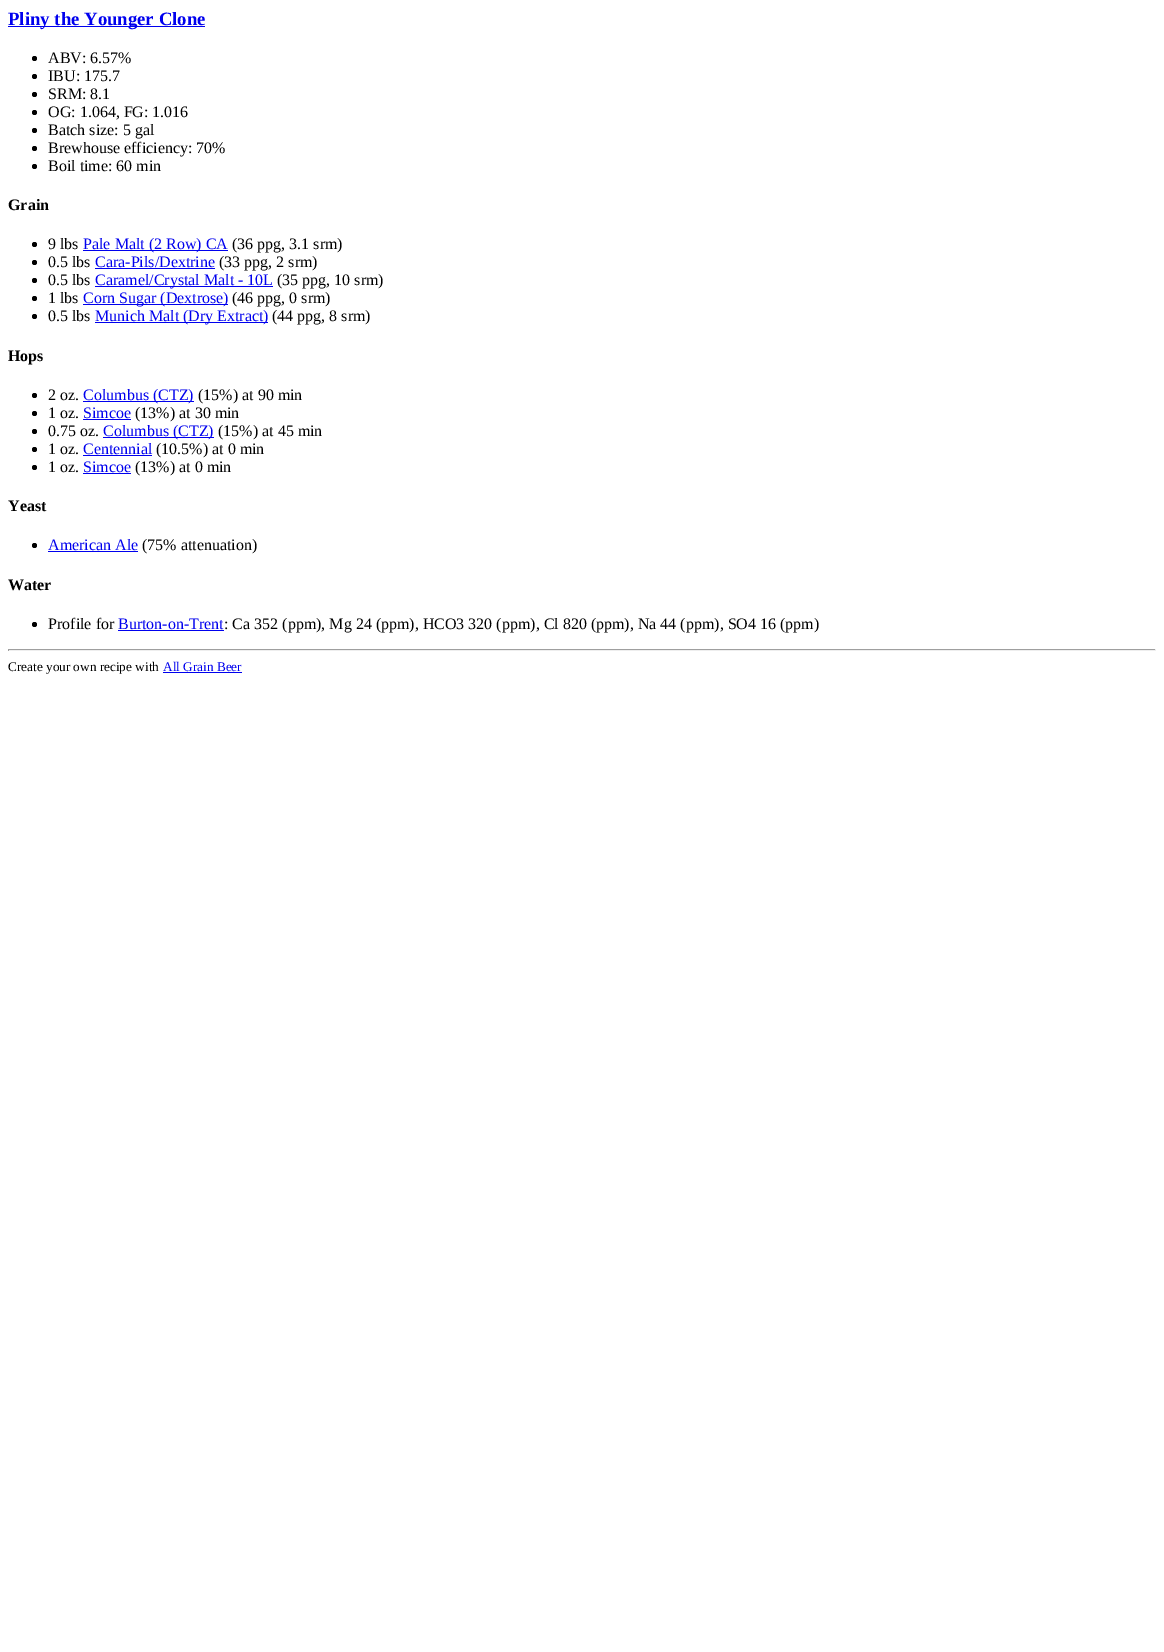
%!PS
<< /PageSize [1164 1652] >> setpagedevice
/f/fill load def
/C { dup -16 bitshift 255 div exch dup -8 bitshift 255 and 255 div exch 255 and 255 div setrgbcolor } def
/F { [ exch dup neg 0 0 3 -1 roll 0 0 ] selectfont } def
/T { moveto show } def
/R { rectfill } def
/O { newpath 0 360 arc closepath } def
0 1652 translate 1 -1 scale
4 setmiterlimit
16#FFFFFF C
0 0 1164 1652 R
16#0000EE C
8 26 197 1 R
/LiberationSerif-Bold 18.75 F
(Pliny the Younger Clone) 8 25 T
16#000000 C
34.5 58.5 2.5 O f
/LiberationSerif-Regular 16 F
(ABV: 6.57%) 48 63 T
34.5 76.5 2.5 O f
(IBU: 175.7) 48 81 T
34.5 94.5 2.5 O f
(SRM: 8.1) 48 99 T
34.5 112.5 2.5 O f
(OG: 1.064, FG: 1.016) 48 117 T
34.5 130.5 2.5 O f
(Batch size: 5 gal) 48 135 T
34.5 148.5 2.5 O f
(Brewhouse efficiency: 70%) 48 153 T
34.5 166.5 2.5 O f
(Boil time: 60 min) 48 171 T
/LiberationSerif-Bold 16 F
(Grain) 8 210 T
34.5 244.5 2.5 O f
/LiberationSerif-Regular 16 F
(9 lbs) 48 249 T
16#0000EE C
83 250 145 1 R
(Pale Malt \(2 Row\) CA) 83 249 T
16#000000 C
(\(36 ppg, 3.1 srm\)) 232 249 T
34.5 262.5 2.5 O f
(0.5 lbs) 48 267 T
16#0000EE C
(Cara-Pils/Dextrine) 95 267 T
95 268 120 1 R
16#000000 C
(\(33 ppg, 2 srm\)) 219 267 T
34.5 280.5 2.5 O f
(0.5 lbs) 48 285 T
16#0000EE C
95 286 178 1 R
(Caramel/Crystal Malt - 10L) 95 285 T
16#000000 C
(\(35 ppg, 10 srm\)) 277 285 T
34.5 298.5 2.5 O f
(1 lbs) 48 303 T
16#0000EE C
83 304 145 1 R
(Corn Sugar \(Dextrose\)) 83 303 T
16#000000 C
(\(46 ppg, 0 srm\)) 232 303 T
34.5 316.5 2.5 O f
(0.5 lbs) 48 321 T
16#0000EE C
95 322 173 1 R
(Munich Malt \(Dry Extract\)) 95 321 T
16#000000 C
(\(44 ppg, 8 srm\)) 272 321 T
/LiberationSerif-Bold 16 F
(Hops) 8 361 T
34.5 395.5 2.5 O f
/LiberationSerif-Regular 16 F
(2 oz.) 48 400 T
16#0000EE C
83 401 111 1 R
(Columbus \(CTZ\)) 83 400 T
16#000000 C
(\(15%\) at 90 min) 198 400 T
34.5 413.5 2.5 O f
(1 oz.) 48 418 T
16#0000EE C
(Simcoe) 83 418 T
83 419 48 1 R
16#000000 C
(\(13%\) at 30 min) 135 418 T
34.5 431.5 2.5 O f
(0.75 oz.) 48 436 T
16#0000EE C
103 437 111 1 R
(Columbus \(CTZ\)) 103 436 T
16#000000 C
(\(15%\) at 45 min) 218 436 T
34.5 449.5 2.5 O f
(1 oz.) 48 454 T
16#0000EE C
(Centennial) 83 454 T
83 455 69 1 R
16#000000 C
(\(10.5%\) at 0 min) 156 454 T
34.5 467.5 2.5 O f
(1 oz.) 48 472 T
16#0000EE C
(Simcoe) 83 472 T
83 473 48 1 R
16#000000 C
(\(13%\) at 0 min) 135 472 T
/LiberationSerif-Bold 16 F
(Yeast) 8 511 T
34.5 545.5 2.5 O f
/LiberationSerif-Regular 16 F
16#0000EE C
(American Ale) 48 550 T
48 551 90 1 R
16#000000 C
(\(75% attenuation\)) 142 550 T
/LiberationSerif-Bold 16 F
(Water) 8 590 T
34.5 624.5 2.5 O f
/LiberationSerif-Regular 16 F
(Profile for) 48 629 T
16#0000EE C
(Burton-on-Trent) 118 629 T
118 630 106 1 R
16#000000 C
(: Ca 352 \(ppm\), Mg 24 \(ppm\), HCO3 320 \(ppm\), Cl 820 \(ppm\), Na 44 \(ppm\), SO4 16 \(ppm\)) 224 629 T
16#9F9F9F C
8 649 1148 1 R
16#EEEEEE C
1155 649 1 2 R
8 650 1148 1 R
16#9F9F9F C
8 649 1 2 R
/LiberationSerif-Regular 13.25 F
16#000000 C
(Create your own recipe with) 8 671 T
16#0000EE C
(All Grain Beer) 163 671 T
163 672 79 1 R
showpage
